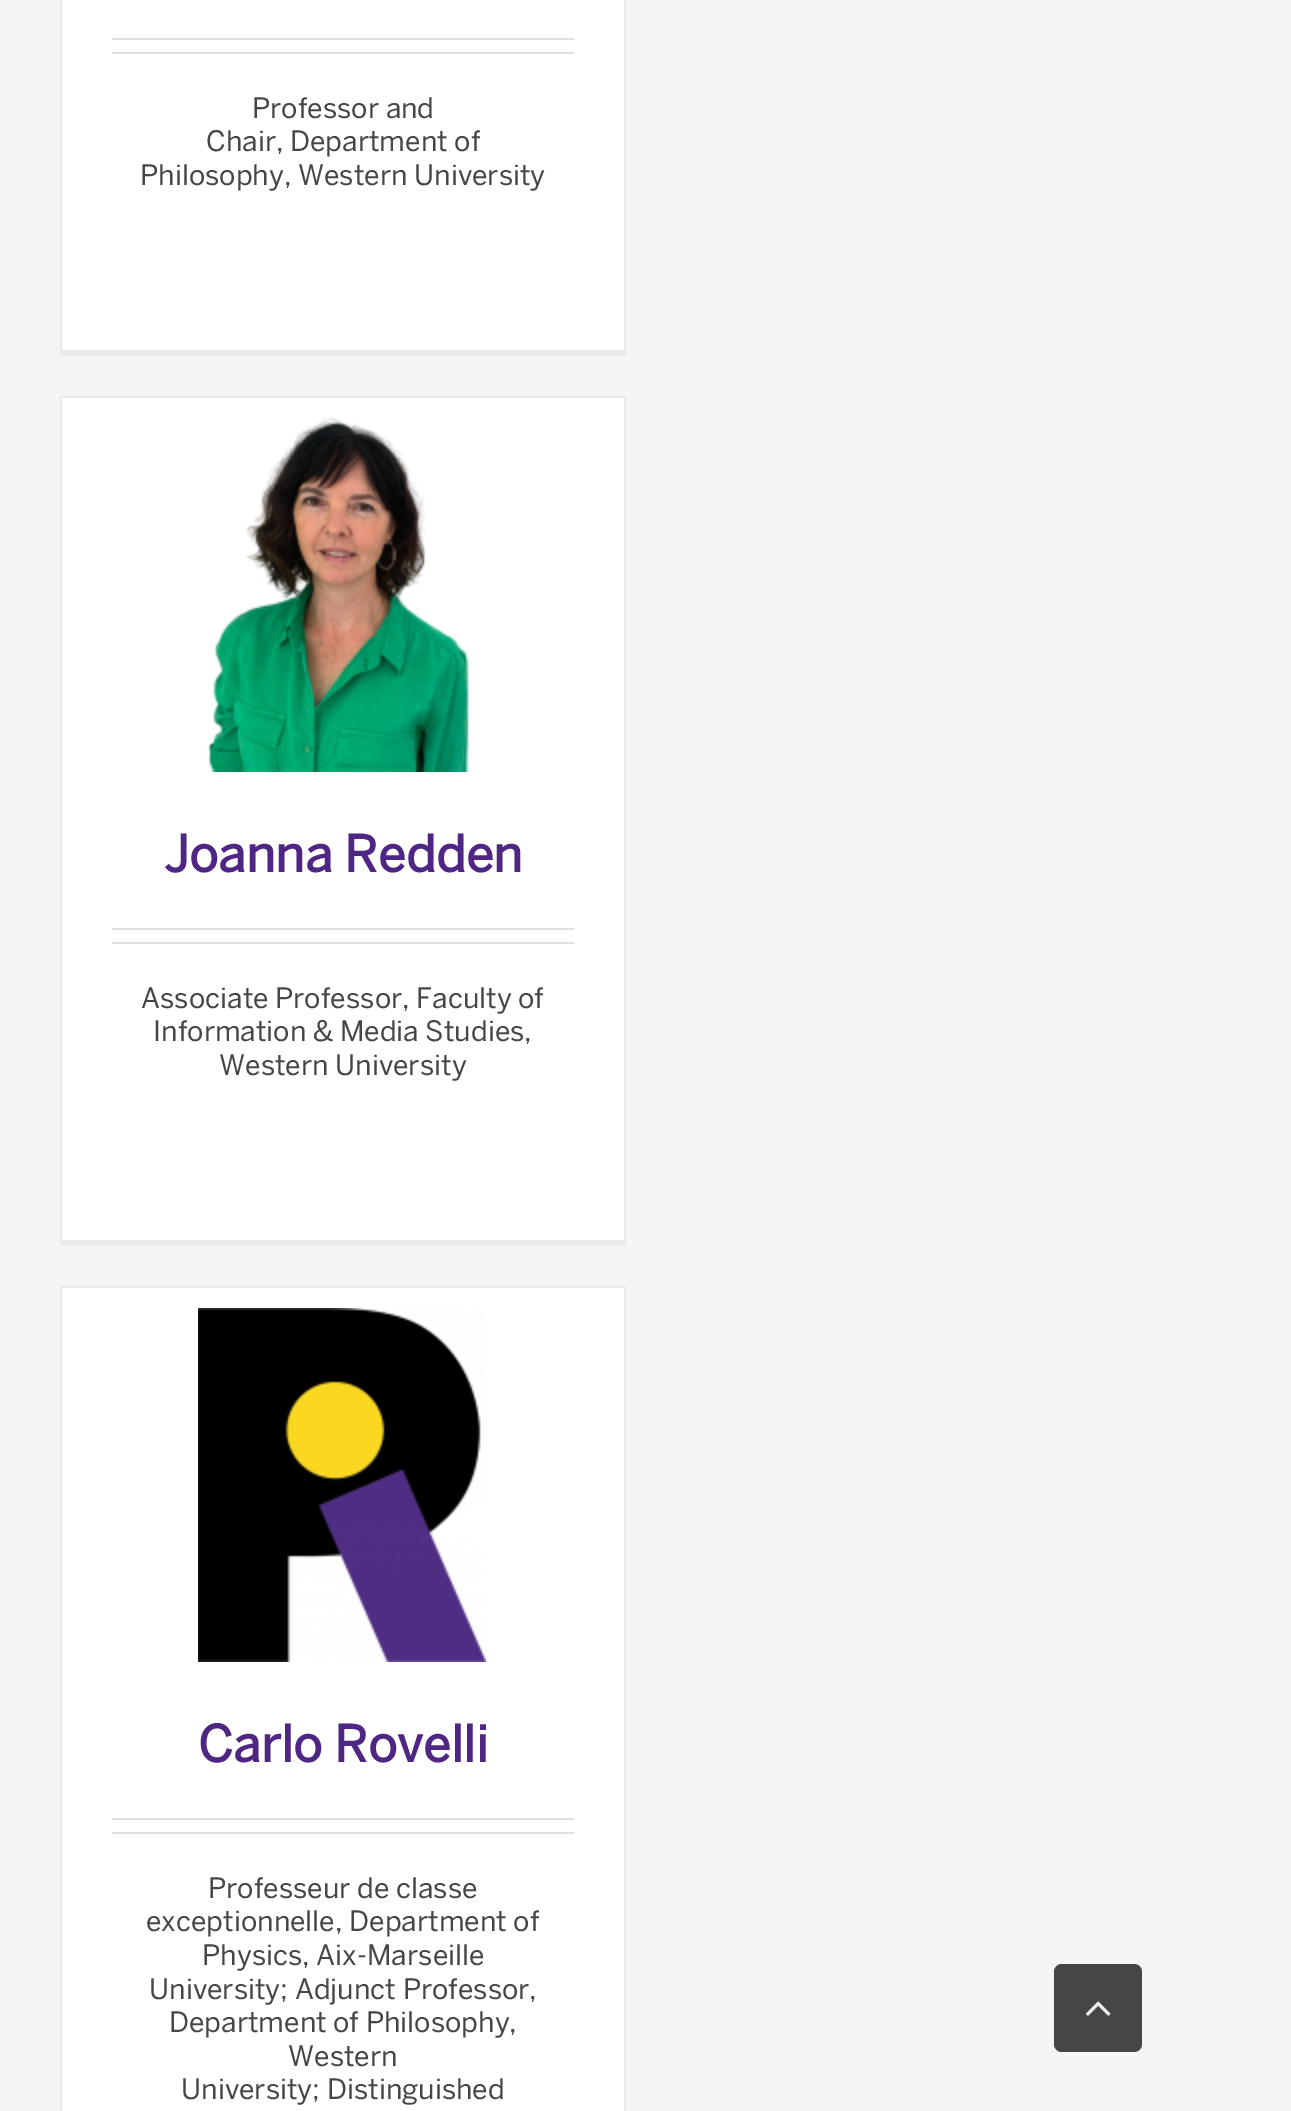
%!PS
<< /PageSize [1291 2111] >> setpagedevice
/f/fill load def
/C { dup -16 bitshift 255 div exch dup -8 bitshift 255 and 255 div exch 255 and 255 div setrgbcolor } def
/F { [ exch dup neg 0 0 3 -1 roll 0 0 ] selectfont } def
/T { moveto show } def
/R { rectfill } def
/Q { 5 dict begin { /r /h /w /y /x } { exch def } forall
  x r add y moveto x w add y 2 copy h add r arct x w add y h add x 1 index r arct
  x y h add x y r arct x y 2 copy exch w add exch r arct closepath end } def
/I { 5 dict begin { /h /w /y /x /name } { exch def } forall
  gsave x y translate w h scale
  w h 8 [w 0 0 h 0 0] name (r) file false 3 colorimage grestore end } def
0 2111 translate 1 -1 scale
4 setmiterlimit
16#F5F5F5 C
0 0 1291 2111 R
16#FFFFFF C
62 0 562 350 R
16#EBEAEA C
624 0 2 356 R
60 350 566 6 R
60 0 2 356 R
16#E0DEDE C
112 38 462 2 R
112 52 462 2 R
/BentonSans-Regular 28 F
16#464646 C
(Professor and) 252 118 T
(Chair, Department of) 206 151 T
(Philosophy, Western University) 140 185 T
16#FFFFFF C
62 398 562 842 R
16#EBEAEA C
60 396 566 2 R
624 396 2 850 R
60 1240 566 6 R
60 396 2 850 R
(1.rgb) 207 418 262 354 I
/BentonSans-Bold 50 F
16#4F2683 C
(Joanna Redden) 164 872 T
16#E0DEDE C
112 928 462 2 R
112 942 462 2 R
/BentonSans-Regular 28 F
16#464646 C
(Associate Professor, Faculty of) 141 1008 T
(Information & Media Studies,) 153 1041 T
(Western University) 219 1075 T
16#FFFFFF C
62 1288 562 823 R
16#EBEAEA C
60 1286 566 2 R
624 1286 2 825 R
60 1286 2 825 R
(2.rgb) 198 1308 288 354 I
/BentonSans-Bold 50 F
16#4F2683 C
(Carlo Rovelli) 198 1762 T
16#E0DEDE C
112 1818 462 2 R
112 1832 462 2 R
/BentonSans-Regular 28 F
16#464646 C
(Professeur de classe) 208 1898 T
(exceptionnelle, Department of) 146 1931 T
(Physics, Aix-Marseille) 202 1965 T
(University; Adjunct Professor,) 149 1999 T
(Department of Philosophy,) 169 2032 T
(Western) 288 2066 T
(University; Distinguished) 181 2099 T
1054 1964 88 88 8 Q f
(3.rgb) 1085 2001 26 15 I
showpage
